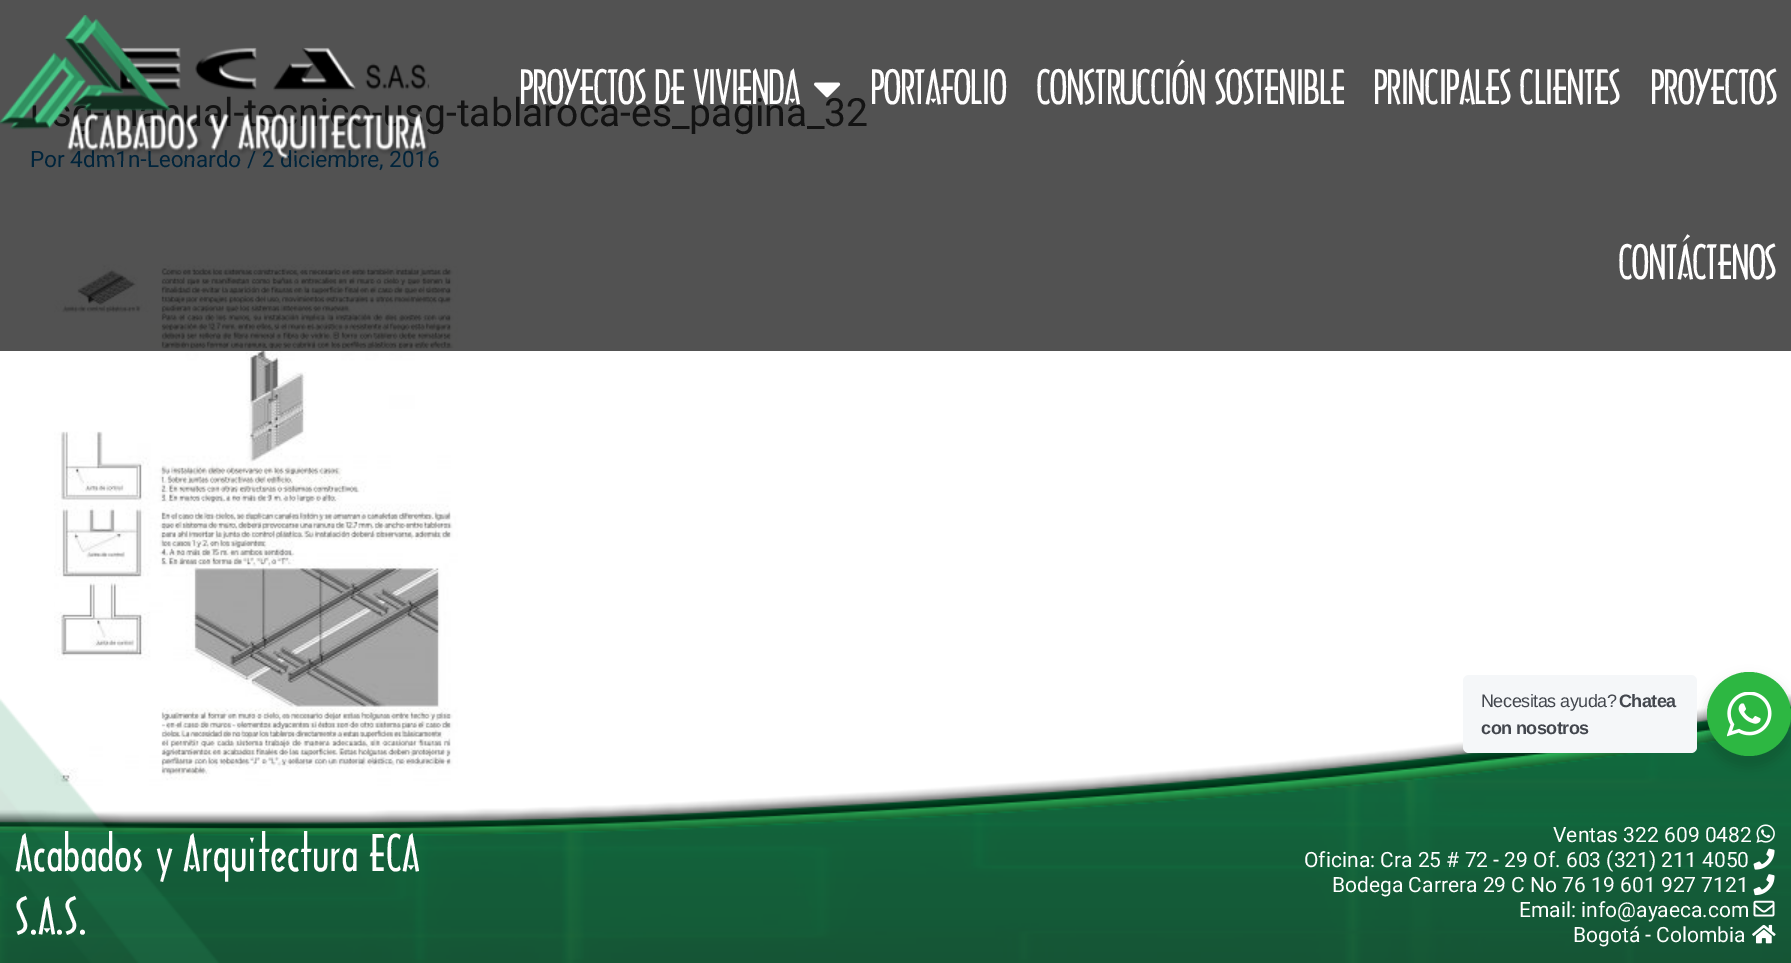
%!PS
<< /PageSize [1791 963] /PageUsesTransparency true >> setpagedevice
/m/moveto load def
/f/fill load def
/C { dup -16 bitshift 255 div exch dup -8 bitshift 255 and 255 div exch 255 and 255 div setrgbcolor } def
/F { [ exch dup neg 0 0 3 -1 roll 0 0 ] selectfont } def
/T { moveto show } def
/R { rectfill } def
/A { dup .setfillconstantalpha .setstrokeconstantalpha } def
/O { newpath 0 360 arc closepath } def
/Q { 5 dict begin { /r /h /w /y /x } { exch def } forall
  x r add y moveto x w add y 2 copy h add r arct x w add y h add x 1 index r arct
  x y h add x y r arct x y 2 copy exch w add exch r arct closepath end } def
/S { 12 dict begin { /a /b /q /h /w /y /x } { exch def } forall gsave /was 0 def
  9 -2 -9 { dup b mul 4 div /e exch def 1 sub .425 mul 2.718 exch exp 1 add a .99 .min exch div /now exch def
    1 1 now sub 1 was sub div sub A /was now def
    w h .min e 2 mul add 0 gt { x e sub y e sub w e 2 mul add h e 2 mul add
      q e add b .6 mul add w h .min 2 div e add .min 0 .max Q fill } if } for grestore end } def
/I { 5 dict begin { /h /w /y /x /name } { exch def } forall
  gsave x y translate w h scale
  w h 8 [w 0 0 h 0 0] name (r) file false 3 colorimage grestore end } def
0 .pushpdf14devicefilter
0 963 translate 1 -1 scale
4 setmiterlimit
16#FFFFFF C
0 0 1791 963 R
/Roboto-Regular 39 F
16#3A3A3A C
(-) 233 126 T
(g-tablaroca-es_pagina_32) 424 126 T
/Roboto-Regular 22.5 F
16#0170B9 C
(Por 4dm1n-Leonardo / 2 diciembre, 2016) 30 167 T
(1.rgb) 54 264 404 522 I
0.68 A
16#000000 C
0 0 1791 351 R
1 A
(2.rgb) 0 15 430 146 I
/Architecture-Regular 45 F
16#FFFEFE C
519 104 m -1.8 0 (PROYECTOS DE VIVIENDA) ashow
(3.rgb) 814 82 27 16 I
870 104 m -1.8 0 (PORTAFOLIO) ashow
1036 104 m -1.8 0 (CONSTRUCCIÓN SOSTENIBLE) ashow
1373 104 m -1.8 0 (PRINCIPALES CLIENTES) ashow
1650 104 m -1.8 0 (PROYECTOS) ashow
1618 279 m -1.8 0 (CONTÁCTENOS) ashow
(4.rgb) 0 694 1791 269 I
/Architecture-Regular 48 F
(Acabados y Arquitectura ECA) 15 871 T
(S.A.S.) 15 934 T
/Roboto-Regular 21 F
(Ventas 322 609 0482) 1553 842 T
(5.rgb) 1756 824 19 19 I
(Oficina: Cra 25 # 72 - 29 Of. 603 \(321\) 211 4050) 1304 867 T
(6.rgb) 1753 848 22 22 I
(Bodega Carrera 29 C No 76 19 601 927 7121) 1332 892 T
(7.rgb) 1753 874 22 22 I
(Email: info@ayaeca.com) 1519 917 T
(8.rgb) 1753 900 22 17 I
(Bogotá - Colombia) 1573 942 T
(9.rgb) 1752 924 24 20 I
16#000000 C
1704 678 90 90 45 6 .14 S
16#F5F7F9 C
1463 675 234 78 6 Q f
/LiberationSans-Regular 18 F
16#43474E C
1481 707 m -.5 0 (Necesitas ayuda?) ashow
/LiberationSans-Bold 18 F
1619 707 m -.5 0 (Chatea) ashow
1481 734 m -.5 0 (con nosotros) ashow
16#2DB742 C
1749 714 42 O f
(10.rgb) 1727 692 45 45 I
.poppdf14devicefilter showpage
